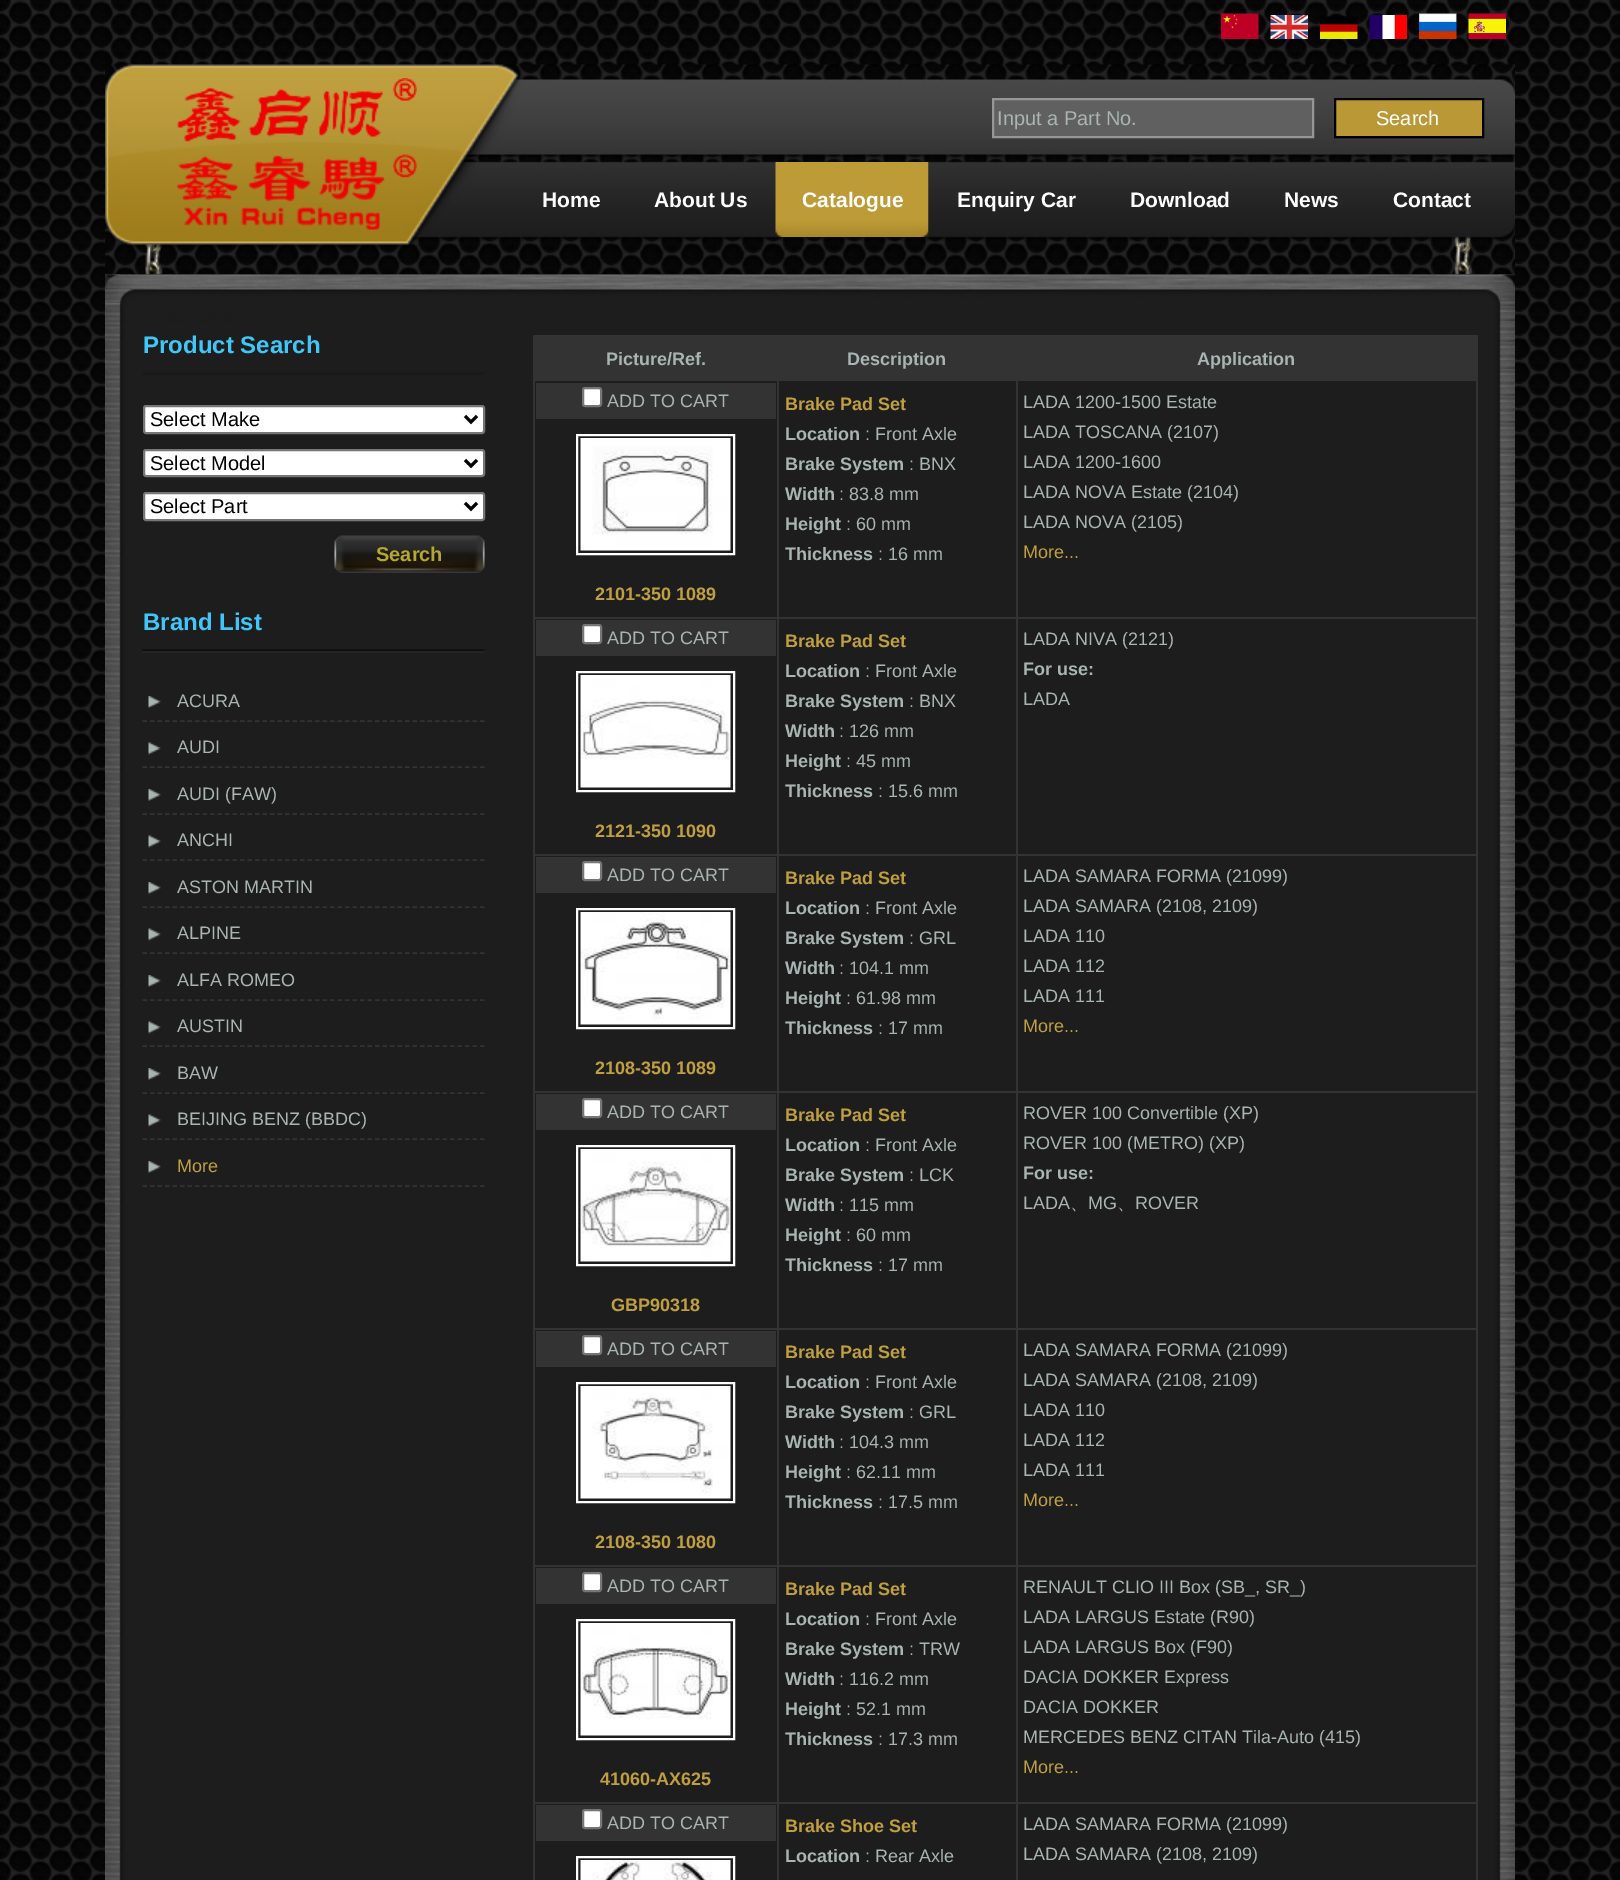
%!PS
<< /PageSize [1620 1880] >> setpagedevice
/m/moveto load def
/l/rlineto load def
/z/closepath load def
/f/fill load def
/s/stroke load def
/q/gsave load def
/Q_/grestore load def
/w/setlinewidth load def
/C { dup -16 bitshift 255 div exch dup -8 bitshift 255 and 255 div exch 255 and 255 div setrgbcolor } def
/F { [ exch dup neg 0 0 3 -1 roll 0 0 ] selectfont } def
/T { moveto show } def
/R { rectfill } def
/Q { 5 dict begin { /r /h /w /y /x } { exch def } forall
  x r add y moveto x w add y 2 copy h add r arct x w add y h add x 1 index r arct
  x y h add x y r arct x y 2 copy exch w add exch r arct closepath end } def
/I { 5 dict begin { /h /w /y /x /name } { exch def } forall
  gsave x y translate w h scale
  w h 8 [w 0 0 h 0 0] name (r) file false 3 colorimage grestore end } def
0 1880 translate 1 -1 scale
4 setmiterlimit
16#FFFFFF C
0 0 1620 1880 R
(1.rgb) 0 0 1620 1880 I
(2.rgb) 105 64 1410 211 I
(3.rgb) 1221 13 38 26 I
(4.rgb) 1270 15 38 24 I
(5.rgb) 1320 16 38 23 I
(6.rgb) 1369 15 38 24 I
(7.rgb) 1419 13 38 26 I
(8.rgb) 1468 13 38 26 I
(9.rgb) 177 78 240 152 I
16#606060 C
993 99 m 320 0 l 0 38 l -320 0 l z q f Q_
16#969696 C
2 w
s
16#BA9836 C
1335 99 m 148 0 l 0 38 l -148 0 l z q f Q_
16#010000 C
s
/LiberationSans-Regular 20 F
16#FFFFFF C
(Search) 1376 125 T
16#A8B5B2 C
(Input a Part No.) 997 125 T
/LiberationSans-Bold 21 F
16#FFFFFF C
(Home) 542 207 T
(About Us) 654 207 T
(10.rgb) 775 162 11 75 I
(11.rgb) 917 162 12 75 I
(12.rgb) 786 162 131 75 I
(Catalogue) 802 207 T
(Enquiry Car) 957 207 T
(Download) 1130 207 T
(News) 1284 207 T
(Contact) 1393 207 T
(13.rgb) 105 274 1410 1606 I
(14.rgb) 105 274 1410 49 I
16#1A1A1A C
142 372 343 3 R
/LiberationSans-Bold 24 F
16#40C7F7 C
(Product Search) 143 353 T
16#FFFFFF C
144 406 340 27 2 Q q f Q_
16#767676 C
s
16#000000 C
3 w
465 416 m 6 6 l 6 -6 l s
/LiberationSans-Regular 20 F
(Select Make) 150 426 T
16#FFFFFF C
144 450 340 26 2 Q q f Q_
16#767676 C
2 w
s
16#000000 C
3 w
465 460 m 6 6 l 6 -6 l s
(Select Model) 150 470 T
16#FFFFFF C
144 493 340 27 2 Q q f Q_
16#767676 C
2 w
s
16#000000 C
3 w
465 503 m 6 6 l 6 -6 l s
(Select Part) 150 513 T
(15.rgb) 334 535 151 38 I
/LiberationSans-Bold 20 F
16#B4A82E C
(Search) 376 561 T
(16.rgb) 142 649 343 4 I
/LiberationSans-Bold 24 F
16#40C7F7 C
(Brand List) 143 630 T
16#333333 C
1.5 w
[4.5 3] 0 setdash
142.5 721 m 342 0 l s
(17.rgb) 148 696 13 12 I
/LiberationSans-Regular 18 F
16#A8B5B2 C
(ACURA) 177 707 T
16#333333 C
142.5 767 m 342 0 l s
(18.rgb) 148 742 13 13 I
16#A8B5B2 C
(AUDI) 177 753 T
16#333333 C
142.5 814 m 342 0 l s
(17.rgb) 148 789 13 12 I
16#A8B5B2 C
(AUDI \(FAW\)) 177 800 T
16#333333 C
142.5 860 m 342 0 l s
(18.rgb) 148 835 13 13 I
16#A8B5B2 C
(ANCHI) 177 846 T
16#333333 C
142.5 907 m 342 0 l s
(17.rgb) 148 882 13 12 I
16#A8B5B2 C
(ASTON MARTIN) 177 893 T
16#333333 C
142.5 953 m 342 0 l s
(18.rgb) 148 928 13 13 I
16#A8B5B2 C
(ALPINE) 177 939 T
16#333333 C
142.5 1000 m 342 0 l s
(17.rgb) 148 975 13 12 I
16#A8B5B2 C
(ALFA ROMEO) 177 986 T
16#333333 C
142.5 1046 m 342 0 l s
(18.rgb) 148 1021 13 13 I
16#A8B5B2 C
(AUSTIN) 177 1032 T
16#333333 C
142.5 1093 m 342 0 l s
(17.rgb) 148 1068 13 12 I
16#A8B5B2 C
(BAW) 177 1079 T
16#333333 C
142.5 1139 m 342 0 l s
(18.rgb) 148 1114 13 13 I
16#A8B5B2 C
(BEIJING BENZ \(BBDC\)) 177 1125 T
16#333333 C
142.5 1186 m 342 0 l s
(17.rgb) 148 1161 13 12 I
16#BF9F3F C
(More) 177 1172 T
16#333333 C
533 335 945 2 R
1476 335 2 1545 R
533 335 2 1545 R
535 337 941 44 R
/LiberationSans-Bold 18 F
16#A8B5B2 C
(Picture/Ref.) 606 365 T
(Description) 847 365 T
(Application) 1197 365 T
16#333333 C
1016 1802 2 78 R
1016 1802 462 2 R
1016 1565 2 238 R
1016 1565 462 2 R
1016 1328 2 238 R
1016 1328 462 2 R
1016 1091 2 238 R
1016 1091 462 2 R
1016 854 2 238 R
1016 854 462 2 R
1016 617 2 238 R
1016 617 462 2 R
1016 381 2 237 R
777 1802 2 78 R
777 1802 240 2 R
777 1565 2 238 R
777 1565 240 2 R
777 1328 2 238 R
777 1328 240 2 R
777 1091 2 238 R
777 1091 240 2 R
777 854 2 238 R
777 854 240 2 R
777 617 2 238 R
777 617 240 2 R
777 381 2 237 R
533 617 246 2 R
536 383 240 36 R
16#FFFFFF C
583 388 18 18 2 Q q f Q_
16#767676 C
2 w
[] 0 setdash
s
/LiberationSans-Regular 18 F
16#A8B5B2 C
(ADD TO CART) 607 407 T
16#FFFFFF C
577 435 157 119 rectstroke
(19.rgb) 580 438 151 113 I
/LiberationSans-Bold 18 F
16#BF9F3F C
(2101-350 1089) 595 600 T
(Brake Pad Set) 785 410 T
16#A8B5B2 C
(Location) 785 440 T
/LiberationSans-Regular 18 F
(: Front Axle) 865 440 T
/LiberationSans-Bold 18 F
(Brake System) 785 470 T
/LiberationSans-Regular 18 F
(: BNX) 909 470 T
/LiberationSans-Bold 18 F
(Width) 785 500 T
/LiberationSans-Regular 18 F
(: 83.8 mm) 839 500 T
/LiberationSans-Bold 18 F
(Height) 785 530 T
/LiberationSans-Regular 18 F
(: 60 mm) 846 530 T
/LiberationSans-Bold 18 F
(Thickness) 785 560 T
/LiberationSans-Regular 18 F
(: 16 mm) 878 560 T
(LADA 1200-1500 Estate) 1023 408 T
(LADA TOSCANA \(2107\)) 1023 438 T
(LADA 1200-1600) 1023 468 T
(LADA NOVA Estate \(2104\)) 1023 498 T
(LADA NOVA \(2105\)) 1023 528 T
16#BF9F3F C
(More...) 1023 558 T
16#333333 C
533 854 246 2 R
536 620 240 36 R
16#FFFFFF C
583 625 18 18 2 Q q f Q_
16#767676 C
s
16#A8B5B2 C
(ADD TO CART) 607 644 T
16#FFFFFF C
577 672 157 119 rectstroke
(20.rgb) 580 675 151 113 I
/LiberationSans-Bold 18 F
16#BF9F3F C
(2121-350 1090) 595 837 T
(Brake Pad Set) 785 647 T
16#A8B5B2 C
(Location) 785 677 T
/LiberationSans-Regular 18 F
(: Front Axle) 865 677 T
/LiberationSans-Bold 18 F
(Brake System) 785 707 T
/LiberationSans-Regular 18 F
(: BNX) 909 707 T
/LiberationSans-Bold 18 F
(Width) 785 737 T
/LiberationSans-Regular 18 F
(: 126 mm) 839 737 T
/LiberationSans-Bold 18 F
(Height) 785 767 T
/LiberationSans-Regular 18 F
(: 45 mm) 846 767 T
/LiberationSans-Bold 18 F
(Thickness) 785 797 T
/LiberationSans-Regular 18 F
(: 15.6 mm) 878 797 T
(LADA NIVA \(2121\)) 1023 645 T
/LiberationSans-Bold 18 F
(For use:) 1023 675 T
/LiberationSans-Regular 18 F
(LADA) 1023 705 T
16#333333 C
533 1091 246 2 R
536 857 240 36 R
16#FFFFFF C
583 862 18 18 2 Q q f Q_
16#767676 C
s
16#A8B5B2 C
(ADD TO CART) 607 881 T
16#FFFFFF C
577 909 157 119 rectstroke
(21.rgb) 580 912 151 113 I
/LiberationSans-Bold 18 F
16#BF9F3F C
(2108-350 1089) 595 1074 T
(Brake Pad Set) 785 884 T
16#A8B5B2 C
(Location) 785 914 T
/LiberationSans-Regular 18 F
(: Front Axle) 865 914 T
/LiberationSans-Bold 18 F
(Brake System) 785 944 T
/LiberationSans-Regular 18 F
(: GRL) 909 944 T
/LiberationSans-Bold 18 F
(Width) 785 974 T
/LiberationSans-Regular 18 F
(: 104.1 mm) 839 974 T
/LiberationSans-Bold 18 F
(Height) 785 1004 T
/LiberationSans-Regular 18 F
(: 61.98 mm) 846 1004 T
/LiberationSans-Bold 18 F
(Thickness) 785 1034 T
/LiberationSans-Regular 18 F
(: 17 mm) 878 1034 T
(LADA SAMARA FORMA \(21099\)) 1023 882 T
(LADA SAMARA \(2108, 2109\)) 1023 912 T
(LADA 110) 1023 942 T
(LADA 112) 1023 972 T
(LADA 111) 1023 1002 T
16#BF9F3F C
(More...) 1023 1032 T
16#333333 C
533 1328 246 2 R
536 1094 240 36 R
16#FFFFFF C
583 1099 18 18 2 Q q f Q_
16#767676 C
s
16#A8B5B2 C
(ADD TO CART) 607 1118 T
16#FFFFFF C
577 1146 157 119 rectstroke
(22.rgb) 580 1149 151 113 I
/LiberationSans-Bold 18 F
16#BF9F3F C
(GBP90318) 611 1311 T
(Brake Pad Set) 785 1121 T
16#A8B5B2 C
(Location) 785 1151 T
/LiberationSans-Regular 18 F
(: Front Axle) 865 1151 T
/LiberationSans-Bold 18 F
(Brake System) 785 1181 T
/LiberationSans-Regular 18 F
(: LCK) 909 1181 T
/LiberationSans-Bold 18 F
(Width) 785 1211 T
/LiberationSans-Regular 18 F
(: 115 mm) 839 1211 T
/LiberationSans-Bold 18 F
(Height) 785 1241 T
/LiberationSans-Regular 18 F
(: 60 mm) 846 1241 T
/LiberationSans-Bold 18 F
(Thickness) 785 1271 T
/LiberationSans-Regular 18 F
(: 17 mm) 878 1271 T
(ROVER 100 Convertible \(XP\)) 1023 1119 T
(ROVER 100 \(METRO\) \(XP\)) 1023 1149 T
/LiberationSans-Bold 18 F
(For use:) 1023 1179 T
/LiberationSans-Regular 18 F
(LADA) 1023 1209 T
/WenQuanYiZenHei-Medium 18 F
(、) 1070 1209 T
/LiberationSans-Regular 18 F
(MG) 1088 1209 T
/WenQuanYiZenHei-Medium 18 F
(、) 1117 1209 T
/LiberationSans-Regular 18 F
(ROVER) 1135 1209 T
16#333333 C
533 1565 246 2 R
536 1331 240 36 R
16#FFFFFF C
583 1336 18 18 2 Q q f Q_
16#767676 C
s
16#A8B5B2 C
(ADD TO CART) 607 1355 T
16#FFFFFF C
577 1383 157 119 rectstroke
(23.rgb) 580 1386 151 113 I
/LiberationSans-Bold 18 F
16#BF9F3F C
(2108-350 1080) 595 1548 T
(Brake Pad Set) 785 1358 T
16#A8B5B2 C
(Location) 785 1388 T
/LiberationSans-Regular 18 F
(: Front Axle) 865 1388 T
/LiberationSans-Bold 18 F
(Brake System) 785 1418 T
/LiberationSans-Regular 18 F
(: GRL) 909 1418 T
/LiberationSans-Bold 18 F
(Width) 785 1448 T
/LiberationSans-Regular 18 F
(: 104.3 mm) 839 1448 T
/LiberationSans-Bold 18 F
(Height) 785 1478 T
/LiberationSans-Regular 18 F
(: 62.11 mm) 846 1478 T
/LiberationSans-Bold 18 F
(Thickness) 785 1508 T
/LiberationSans-Regular 18 F
(: 17.5 mm) 878 1508 T
(LADA SAMARA FORMA \(21099\)) 1023 1356 T
(LADA SAMARA \(2108, 2109\)) 1023 1386 T
(LADA 110) 1023 1416 T
(LADA 112) 1023 1446 T
(LADA 111) 1023 1476 T
16#BF9F3F C
(More...) 1023 1506 T
16#333333 C
533 1802 246 2 R
536 1568 240 36 R
16#FFFFFF C
583 1573 18 18 2 Q q f Q_
16#767676 C
s
16#A8B5B2 C
(ADD TO CART) 607 1592 T
16#FFFFFF C
577 1620 157 119 rectstroke
(24.rgb) 580 1623 151 113 I
/LiberationSans-Bold 18 F
16#BF9F3F C
(41060-AX625) 600 1785 T
(Brake Pad Set) 785 1595 T
16#A8B5B2 C
(Location) 785 1625 T
/LiberationSans-Regular 18 F
(: Front Axle) 865 1625 T
/LiberationSans-Bold 18 F
(Brake System) 785 1655 T
/LiberationSans-Regular 18 F
(: TRW) 909 1655 T
/LiberationSans-Bold 18 F
(Width) 785 1685 T
/LiberationSans-Regular 18 F
(: 116.2 mm) 839 1685 T
/LiberationSans-Bold 18 F
(Height) 785 1715 T
/LiberationSans-Regular 18 F
(: 52.1 mm) 846 1715 T
/LiberationSans-Bold 18 F
(Thickness) 785 1745 T
/LiberationSans-Regular 18 F
(: 17.3 mm) 878 1745 T
(RENAULT CLIO III Box \(SB_, SR_\)) 1023 1593 T
(LADA LARGUS Estate \(R90\)) 1023 1623 T
(LADA LARGUS Box \(F90\)) 1023 1653 T
(DACIA DOKKER Express) 1023 1683 T
(DACIA DOKKER) 1023 1713 T
(MERCEDES BENZ CITAN Tila-Auto \(415\)) 1023 1743 T
16#BF9F3F C
(More...) 1023 1773 T
16#333333 C
536 1805 240 36 R
16#FFFFFF C
583 1810 18 18 2 Q q f Q_
16#767676 C
s
16#A8B5B2 C
(ADD TO CART) 607 1829 T
16#FFFFFF C
577 1857 157 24 rectstroke
(25.rgb) 580 1860 151 20 I
/LiberationSans-Bold 18 F
16#BF9F3F C
(Brake Shoe Set) 785 1832 T
16#A8B5B2 C
(Location) 785 1862 T
/LiberationSans-Regular 18 F
(: Rear Axle) 865 1862 T
(LADA SAMARA FORMA \(21099\)) 1023 1830 T
(LADA SAMARA \(2108, 2109\)) 1023 1860 T
showpage
